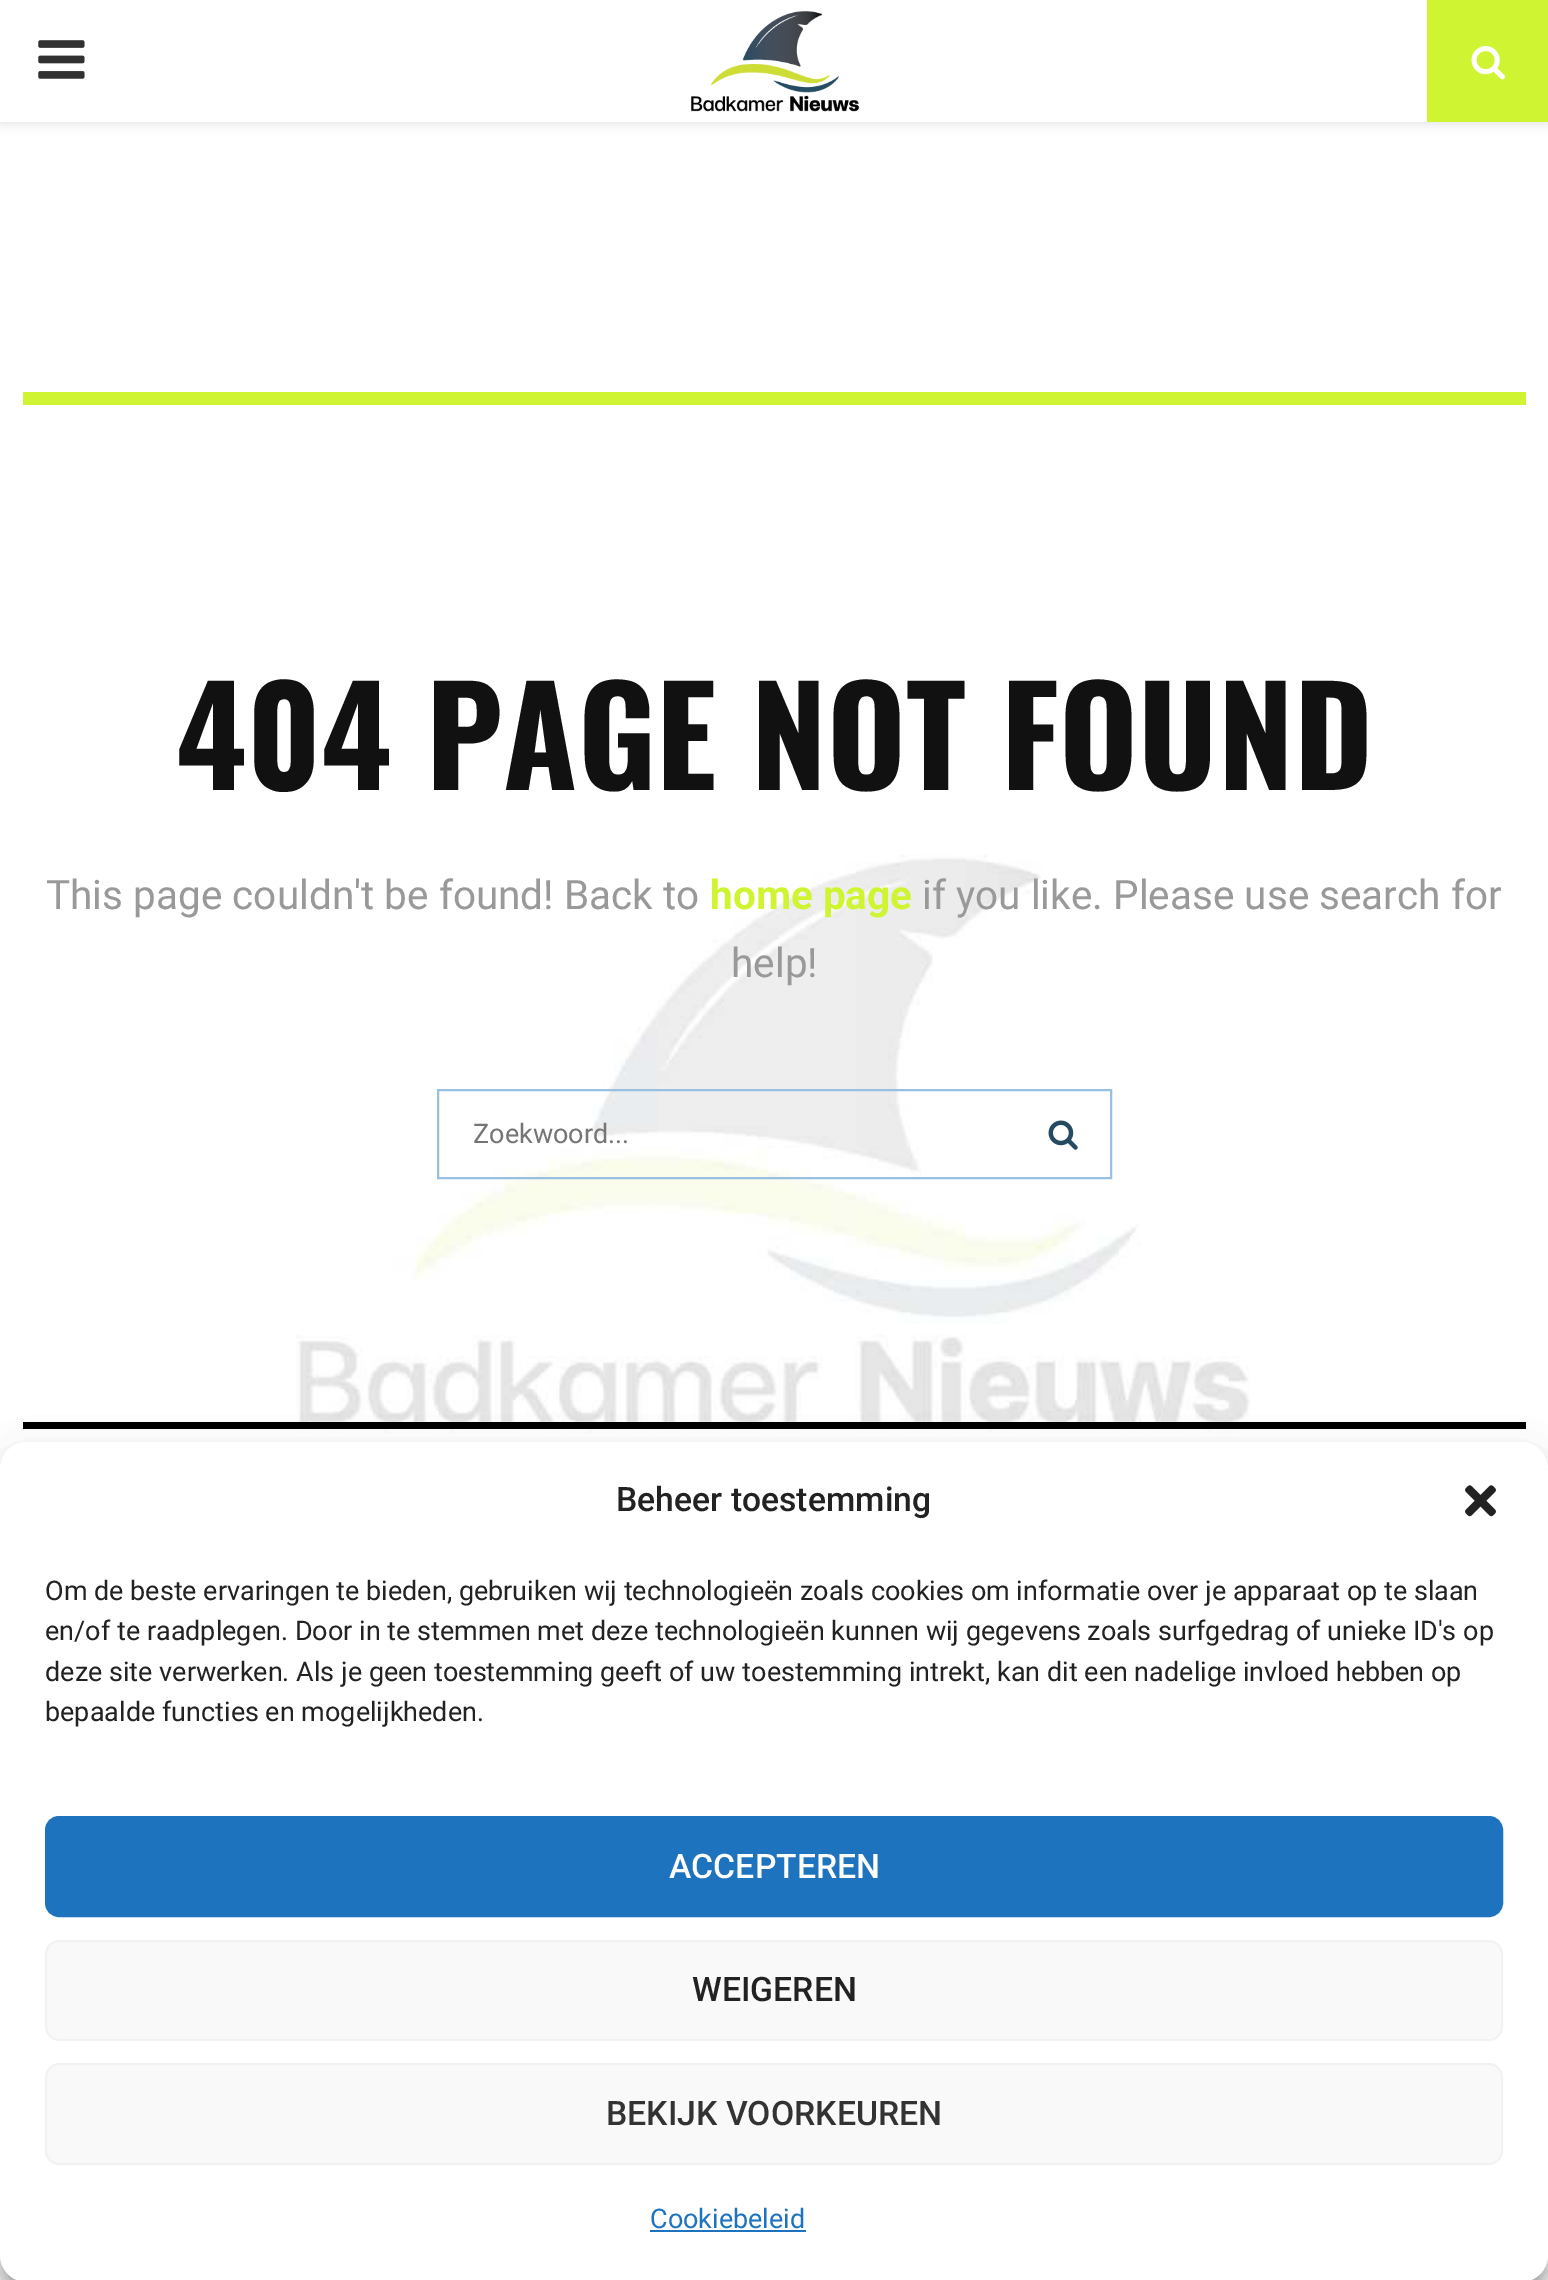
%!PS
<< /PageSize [1548 2280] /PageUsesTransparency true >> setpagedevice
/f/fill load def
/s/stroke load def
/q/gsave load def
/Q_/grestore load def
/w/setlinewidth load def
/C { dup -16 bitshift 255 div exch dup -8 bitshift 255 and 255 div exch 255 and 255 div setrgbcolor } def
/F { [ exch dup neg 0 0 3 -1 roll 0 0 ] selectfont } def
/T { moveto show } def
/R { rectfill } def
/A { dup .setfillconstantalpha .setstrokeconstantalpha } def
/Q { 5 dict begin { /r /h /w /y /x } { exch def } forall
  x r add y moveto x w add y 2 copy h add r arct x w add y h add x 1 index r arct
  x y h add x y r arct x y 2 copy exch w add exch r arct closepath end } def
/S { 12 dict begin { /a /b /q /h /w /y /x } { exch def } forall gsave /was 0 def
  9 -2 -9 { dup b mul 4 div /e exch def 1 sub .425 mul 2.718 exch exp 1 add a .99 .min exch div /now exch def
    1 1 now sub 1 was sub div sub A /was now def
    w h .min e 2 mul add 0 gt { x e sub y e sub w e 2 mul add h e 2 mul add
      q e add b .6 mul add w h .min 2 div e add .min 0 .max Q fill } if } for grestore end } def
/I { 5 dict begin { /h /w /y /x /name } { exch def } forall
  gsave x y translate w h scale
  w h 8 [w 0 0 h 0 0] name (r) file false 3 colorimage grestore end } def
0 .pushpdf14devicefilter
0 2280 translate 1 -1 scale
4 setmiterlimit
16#FFFFFF C
0 0 1548 2280 R
(1.rgb) 296 854 954 579 I
16#BEBEBE C
0 2 1548 122 0 5.5 .46 S
16#FFFFFF C
0 0 1427 122 R
(2.rgb) 38 40 47 39 I
(3.rgb) 691 11 169 101 I
16#CFF532 C
1427 0 121 122 R
(4.rgb) 1471 46 34 34 I
23 392 1503 13 R
/Oswald-Bold 135 F
16#111111 C
(404 PAGE NOT FOUND) 176 790 T
/Roboto-Regular 40.5 F
16#999999 C
(This page couldn't be found! Back to) 46 909 T
/Roboto-Bold 40.5 F
16#CFF532 C
(home page) 710 909 T
/Roboto-Regular 40.5 F
16#999999 C
(if you like. Please use search for) 922 909 T
(help!) 731 977 T
16#99C0E1 C
2 w
438 1090 673 88 rectstroke
/Roboto-Regular 27 F
16#757575 C
(Zoekwoord...) 473 1143 T
(5.rgb) 1048 1120 30 30 I
16#000000 C
23 1422 1503 7 R
0 1456 1548 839 27 7 .23 S
0 1465 1548 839 27 22.5 .19 S
16#FFFFFF C
0 1442 1548 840 27 Q f
/Roboto-Medium 33.75 F
16#222222 C
(Beheer toestemming) 616 1511 T
(6.rgb) 1465 1485 31 32 I
/Roboto-Regular 27 F
(Om de beste ervaringen te bieden, gebruiken wij technologieën zoals cookies om informatie over je apparaat op te slaan) 45 1600 T
(en/of te raadplegen. Door in te stemmen met deze technologieën kunnen wij gegevens zoals surfgedrag of unieke ID's op) 45 1640 T
(deze site verwerken. Als je geen toestemming geeft of uw toestemming intrekt, kan dit een nadelige invloed hebben op) 45 1681 T
(bepaalde functies en mogelijkheden.) 45 1721 T
16#1E73BE C
46 1817 1456 99 13 Q q f Q_
s
/Roboto-Medium 33.75 F
16#FFFFFF C
(ACCEPTEREN) 669 1878 T
16#F9F9F9 C
46 1941 1456 99 13 Q q f Q_
16#F2F2F2 C
s
16#222222 C
(WEIGEREN) 692 2001 T
16#F9F9F9 C
46 2064 1456 100 13 Q q f Q_
16#F2F2F2 C
s
16#333333 C
(BEKIJK VOORKEUREN) 606 2125 T
/Roboto-Regular 27 F
16#1E73BE C
(Cookiebeleid) 650 2228 T
650 2230 156 2 R
.poppdf14devicefilter showpage
